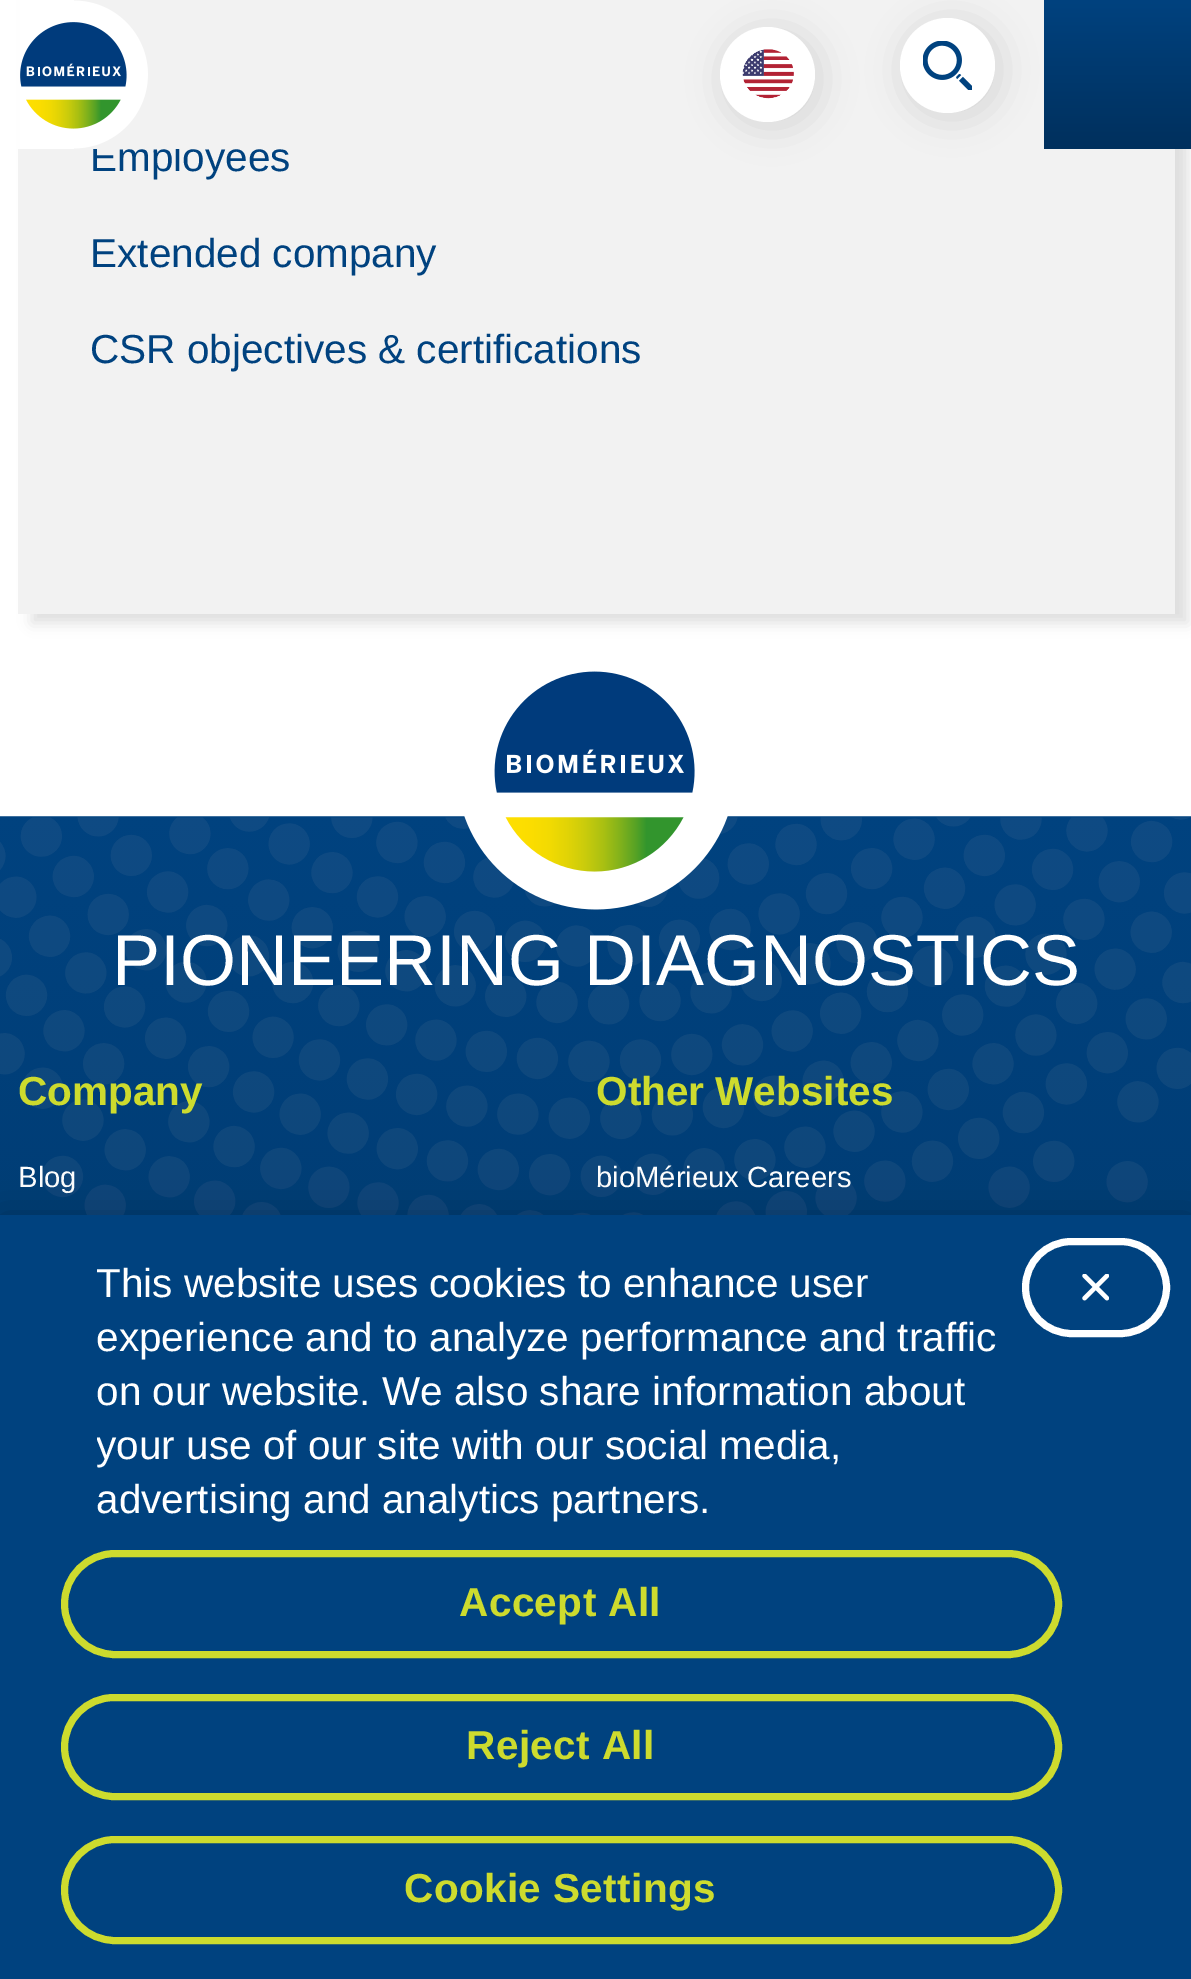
%!PS
<< /PageSize [1191 1979] /PageUsesTransparency true >> setpagedevice
/m/moveto load def
/l/rlineto load def
/z/closepath load def
/f/fill load def
/s/stroke load def
/q/gsave load def
/Q_/grestore load def
/w/setlinewidth load def
/C { dup -16 bitshift 255 div exch dup -8 bitshift 255 and 255 div exch 255 and 255 div setrgbcolor } def
/F { [ exch dup neg 0 0 3 -1 roll 0 0 ] selectfont } def
/T { moveto show } def
/R { rectfill } def
/A { dup .setfillconstantalpha .setstrokeconstantalpha } def
/O { newpath 0 360 arc closepath } def
/Q { 5 dict begin { /r /h /w /y /x } { exch def } forall
  x r add y moveto x w add y 2 copy h add r arct x w add y h add x 1 index r arct
  x y h add x y r arct x y 2 copy exch w add exch r arct closepath end } def
/S { 12 dict begin { /a /b /q /h /w /y /x } { exch def } forall gsave /was 0 def
  9 -2 -9 { dup b mul 4 div /e exch def 1 sub .425 mul 2.718 exch exp 1 add a .99 .min exch div /now exch def
    1 1 now sub 1 was sub div sub A /was now def
    w h .min e 2 mul add 0 gt { x e sub y e sub w e 2 mul add h e 2 mul add
      q e add b .6 mul add w h .min 2 div e add .min 0 .max Q fill } if } for grestore end } def
/I { 5 dict begin { /h /w /y /x /name } { exch def } forall
  gsave x y translate w h scale
  w h 8 [w 0 0 h 0 0] name (r) file false 3 colorimage grestore end } def
0 .pushpdf14devicefilter
0 1979 translate 1 -1 scale
4 setmiterlimit
16#FFFFFF C
0 0 1191 1979 R
16#000000 C
32 -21 1156 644 0 7 .12 S
16#F2F2F2 C
18 149 1157 465 R
/LiberationSans-Regular 40.5 F
16#00427F C
(Employees) 90 171 T
16#F2F2F2 C
74 0 970 149 R
16#FFFFFF C
22 0 52 149 R
(1.rgb) 20 0 128 149 I
16#000000 C
725 32 94 94 47 18 .12 S
16#FFFFFF C
767.5 74.5 47.5 O f
(2.rgb) 742 49 52 50 I
16#000000 C
905 23 94 94 47 18 .12 S
16#FFFFFF C
947.5 65.5 47.5 O f
(3.rgb) 923 41 49 49 I
q 1044 0 m 147 0 l 0 149 l -147 0 l z clip newpath
<< /ShadingType 2 /ColorSpace /DeviceRGB /Coords [1118 0 1118 149] /Extend [true true] /Function << /FunctionType 2 /Domain [0 1] /C0 [0 .259 .498] /C1 [0 .188 .365] /N 1 >> >> shfill Q_
16#00427F C
(Extended company) 90 267 T
(CSR objectives & certifications) 90 363 T
(4.rgb) 0 816 1191 399 I
(5.rgb) 464 671 264 239 I
/LiberationSans-Regular 72 F
16#FFFFFF C
(PIONEERING DIAGNOSTICS) 112 985 T
/LiberationSans-Bold 40.5 F
16#CDDB2E C
(Company) 18 1105 T
/LiberationSans-Regular 29.25 F
16#FFFFFF C
(Blog) 18 1187 T
/LiberationSans-Bold 40.5 F
16#CDDB2E C
(Other Websites) 596 1105 T
/LiberationSans-Regular 29.25 F
16#FFFFFF C
(bioMérieux Careers) 596 1187 T
16#000000 C
0 1215 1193 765 0 20 .2 S
16#00427F C
0 1215 1191 764 R
q
97 1260 947 268 rectclip
/LiberationSans-Regular 40.5 F
16#FFFFFF C
(This website uses cookies to enhance user) 96 1297 T
Q_
/LiberationSans-Regular 40.5 F
16#FFFFFF C
(experience and to analyze performance and traffic) 96 1351 T
(on our website. We also share information about) 96 1405 T
q
97 1260 947 268 rectclip
(your use of our site with our social media,) 96 1459 T
Q_
(advertising and analytics partners.) 96 1513 T
16#CDDB2E C
7 w
64.5 1553.5 994 101 50.5 Q s
/LiberationSans-Bold 40.5 F
459 1616 m .4 0 (Accept All) ashow
64.5 1697.5 994 99 49.5 Q s
466 1759 m .4 0 (Reject All) ashow
64.5 1839.5 994 101 50.5 Q s
404 1902 m .4 0 (Cookie Settings) ashow
(6.rgb) 1082 1274 27 27 I
16#FFFFFF C
1025.5 1241.5 141 92 46 Q s
.poppdf14devicefilter showpage
